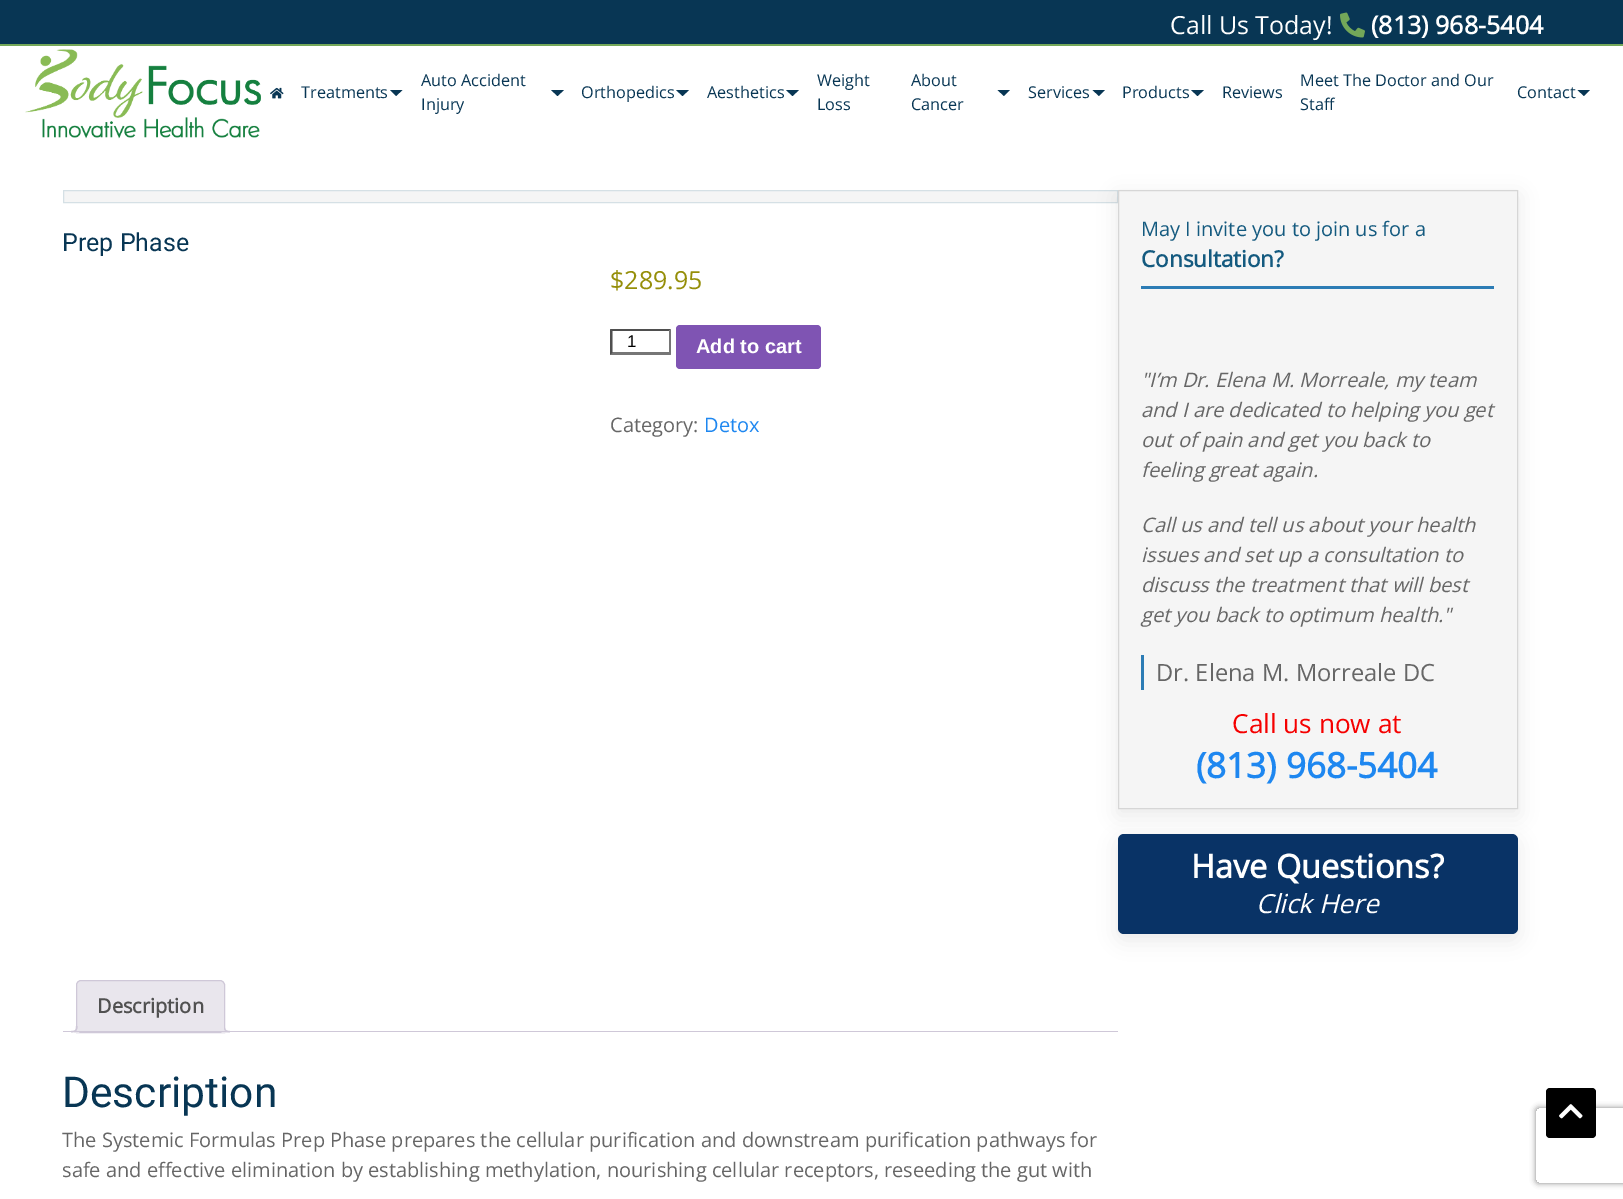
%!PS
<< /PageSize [1623 1199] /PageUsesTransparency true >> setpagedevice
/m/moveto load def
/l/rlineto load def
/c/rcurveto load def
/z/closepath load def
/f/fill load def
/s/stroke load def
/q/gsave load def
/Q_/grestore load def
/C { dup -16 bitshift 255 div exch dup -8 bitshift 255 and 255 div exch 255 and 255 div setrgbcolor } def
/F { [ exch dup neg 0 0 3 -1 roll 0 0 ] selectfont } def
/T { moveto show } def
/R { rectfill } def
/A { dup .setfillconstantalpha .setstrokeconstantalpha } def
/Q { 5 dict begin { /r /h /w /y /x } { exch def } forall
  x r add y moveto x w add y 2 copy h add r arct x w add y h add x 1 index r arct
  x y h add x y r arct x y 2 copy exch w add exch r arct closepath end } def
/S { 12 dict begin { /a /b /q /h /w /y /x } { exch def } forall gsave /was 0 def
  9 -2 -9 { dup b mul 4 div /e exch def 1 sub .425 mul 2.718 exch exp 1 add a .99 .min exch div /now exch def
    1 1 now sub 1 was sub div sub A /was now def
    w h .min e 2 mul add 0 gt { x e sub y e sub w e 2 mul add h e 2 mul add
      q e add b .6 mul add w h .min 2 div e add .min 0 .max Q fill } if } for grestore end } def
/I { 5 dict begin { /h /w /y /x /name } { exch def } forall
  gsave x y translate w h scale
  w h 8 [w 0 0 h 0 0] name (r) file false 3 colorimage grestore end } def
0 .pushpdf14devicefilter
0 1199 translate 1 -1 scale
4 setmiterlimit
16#FFFFFF C
0 0 1623 1199 R
16#083654 C
0 0 1623 44 R
16#74A859 C
0 44 1623 2 R
/OpenSans-Regular 25 F
16#FFFFFF C
(Call Us Today!) 1170 34 T
(1.rgb) 1340 12 25 26 I
/OpenSans-Bold 25 F
(\(813\) 968-5404) 1371 34 T
(2.rgb) 25 49 236 90 I
(3.rgb) 270 87 14 12 I
/OpenSans-Regular 16.25 F
16#083654 C
(Treatments) 301 98 T
390 90 m 12.5 0 l -6.5 6 l z f
(Auto Accident) 421 86 T
551 90 m 13 0 l -6.5 6 l z f
(Injury) 421 110 T
(Orthopedics) 581 98 T
676 90 m 13 0 l -6.5 6 l z f
(Aesthetics) 707 98 T
786 90 m 13 0 l -6.5 6 l z f
(Weight) 817 86 T
(Loss) 817 110 T
(About) 911 86 T
997.5 90 m 12.5 0 l -6 6 l z f
(Cancer) 911 110 T
(Services) 1028 98 T
1092.5 90 m 12.5 0 l -6 6 l z f
(Products) 1122 98 T
1191 90 m 13 0 l -6.5 6 l z f
(Reviews) 1222 98 T
(Meet The Doctor and Our) 1300 86 T
(Staff) 1300 110 T
(Contact) 1517 98 T
1577.5 90 m 12.5 0 l -6 6 l z f
16#F5F5F5 C
63.5 190.5 m 1054 0 l 0 12 l -1054 0 l z q f Q_
16#D5E0E5 C
s
/Roboto-Regular 25 F
16#083654 C
(Prep Phase) 62 251 T
/OpenSans-Regular 25 F
16#958E09 C
($289.95) 610 289 T
16#4F4F4F C
610 329 m 61 0 l -2 2 l -57 0 l z f
16#767676 C
671 329 m 0 26 l -2 -2.5 l 0 -21.5 l z f
671 355 m -61 0 l 2 -3 l 57 0 l z f
16#4F4F4F C
610 355 m 0 -26 l 2.5 2 l 0 21.5 l z f
/LiberationSans-Regular 17 F
16#000000 C
(1) 627 347 T
16#7F54B3 C
676 325 145 44 4 Q f
/LiberationSans-Bold 20 F
16#FFFFFF C
(Add to cart) 696 353 T
/OpenSans-Regular 20 F
16#666666 C
(Category:) 610 432 T
16#1E87F0 C
(Detox) 704 432 T
16#E9E6ED C
81 980.5 m 139 0 l 2.5 0 4.5 2 4.5 4.5 c 0 47.5 l -148 0 l 0 -47.5 l 0 -2.5 2 -4.5 4.5 -4.5 c z q f Q_
16#CFC8D8 C
s
/OpenSans-Bold 20 F
16#515151 C
(Description) 97 1013 T
q
63 980 1055 53 rectclip
16#E9E6ED C
74 1032.5 m 0 2.5 l 4 0 6 -2 6 -6 c -2.5 0 l -.5 1.5 -2 3 -3.5 3.5 c z f
Q_
16#CFC8D8 C
71 1026 m 6.5 0 l 0 4.5 -2 6.5 -6.5 6.5 c z 71 1026 m 5 0 l 0 4 -1 5 -5 5 c z eofill
q
63 980 1055 53 rectclip
16#E9E6ED C
221 1029 m 0 5 2.5 6 7 6 c 0 -2.5 l -2 -.5 -3.5 -1.5 -4 -3.5 c z f
Q_
224 1026 m 6 0 l 0 6.5 l -3 0 -6 -1.5 -6 -5 c z 225 1026 m 5 0 l 0 5 l -2.5 0 -5 -.5 -5 -3.5 c z eofill
63 1031 1055 1 R
/Roboto-Regular 42.5 F
16#083654 C
(Description) 62 1107 T
/OpenSans-Regular 20 F
16#666666 C
(The Systemic Formulas Prep Phase prepares the cellular purification and downstream purification pathways for) 62 1147 T
(safe and effective elimination by establishing methylation, nourishing cellular receptors, reseeding the gut with) 62 1177 T
16#000000 C
1118 196 400 619 0 9.5 .08 S
16#F5F5F5 C
1118.5 190.5 m 399 0 l 0 618 l -399 0 l z q f Q_
16#D6D6D6 C
s
16#2C7CB5 C
1141 286 353 3 R
16#145A7F C
(May I invite you to join us for a) 1141 236 T
/OpenSans-Bold 22.5 F
(Consultation?) 1141 267 T
/OpenSans-Italic 20 F
16#666666 C
("I’m Dr. Elena M. Morreale, my team) 1141 387 T
(and I are dedicated to helping you get) 1141 417 T
(out of pain and get you back to) 1141 447 T
(feeling great again.) 1141 477 T
(Call us and tell us about your health) 1141 532 T
(issues and set up a consultation to) 1141 562 T
(discuss the treatment that will best) 1141 592 T
(get you back to optimum health.") 1141 622 T
16#2C7CB5 C
1141 655 3 35 R
/OpenSans-Regular 23.75 F
16#666666 C
(Dr. Elena M. Morreale DC) 1156 681 T
/OpenSans-Regular 26.25 F
16#F50000 C
(Call us now at) 1232 733 T
/OpenSans-Bold 35 F
16#1E87F0 C
(\(813\) 968-5404) 1196 778 T
16#000000 C
1118 840 400 100 6 9.5 .08 S
16#093366 C
1118 834 400 100 6 Q f
/OpenSans-Bold 32.5 F
16#FFFFFF C
(Have Questions?) 1191 878 T
/OpenSans-Italic 26.25 F
(Click Here) 1256 913 T
q
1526 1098 m 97 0 l 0 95 l -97 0 l z 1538.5 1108 m 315 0 l 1.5 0 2.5 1 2.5 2.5 c 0 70 l 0 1.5 -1 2.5 -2.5 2.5 c -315 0 l -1.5 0 -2.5 -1 -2.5 -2.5 c 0 -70 l 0 -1.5 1 -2.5 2.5 -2.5 c z eoclip newpath
16#808080 C
1536 1108 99 75 2.5 3 1 S
Q_
16#000000 C
1546 1088 50 50 4 Q f
(4.rgb) 1559 1104 24 15 I
.poppdf14devicefilter showpage
